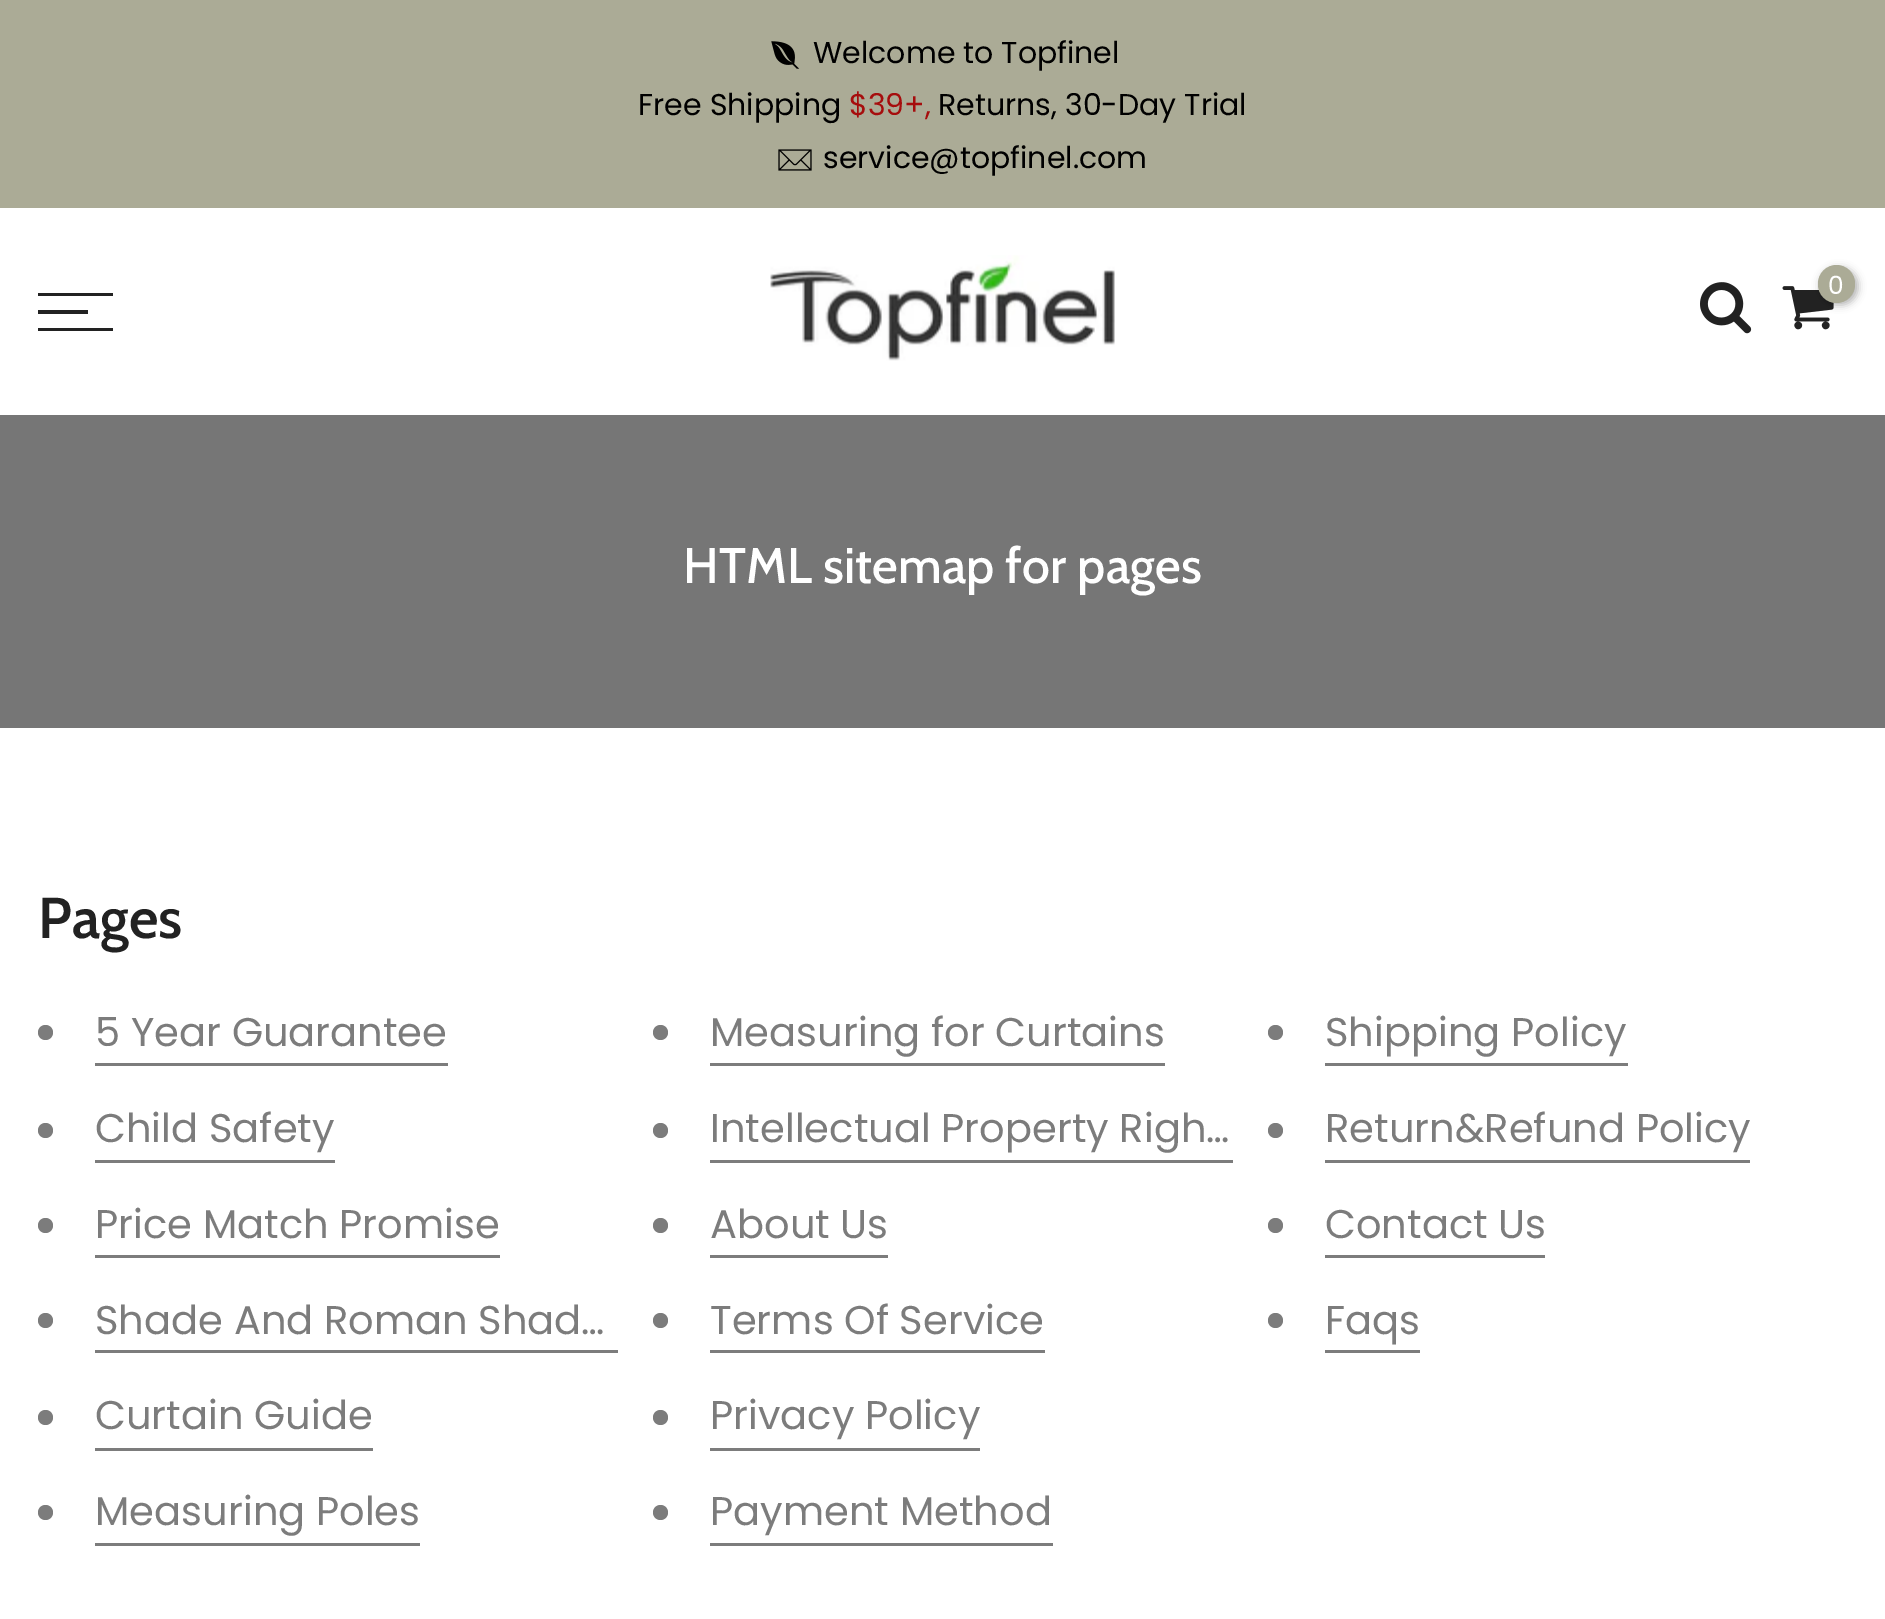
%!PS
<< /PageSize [1885 1619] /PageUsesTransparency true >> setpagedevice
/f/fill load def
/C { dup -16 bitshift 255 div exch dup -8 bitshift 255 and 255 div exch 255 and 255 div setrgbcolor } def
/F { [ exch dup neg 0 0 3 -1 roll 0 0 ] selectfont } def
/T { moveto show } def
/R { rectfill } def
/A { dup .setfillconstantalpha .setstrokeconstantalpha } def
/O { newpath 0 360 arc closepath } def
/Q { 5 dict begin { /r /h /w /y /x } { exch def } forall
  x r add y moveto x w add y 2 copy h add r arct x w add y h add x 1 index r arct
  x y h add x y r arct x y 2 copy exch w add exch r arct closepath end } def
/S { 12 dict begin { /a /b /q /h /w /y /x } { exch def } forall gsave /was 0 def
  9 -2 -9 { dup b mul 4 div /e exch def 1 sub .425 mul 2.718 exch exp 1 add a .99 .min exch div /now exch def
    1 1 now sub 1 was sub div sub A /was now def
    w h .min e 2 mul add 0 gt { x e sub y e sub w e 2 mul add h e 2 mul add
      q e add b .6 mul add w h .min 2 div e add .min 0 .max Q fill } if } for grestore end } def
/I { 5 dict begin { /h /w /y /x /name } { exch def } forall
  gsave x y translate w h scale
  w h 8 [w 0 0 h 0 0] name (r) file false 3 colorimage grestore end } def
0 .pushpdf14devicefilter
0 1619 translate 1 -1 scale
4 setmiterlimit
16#FFFFFF C
0 0 1885 1619 R
16#ABAB96 C
0 0 1885 208 R
(1.rgb) 771 41 29 28 I
/Poppins-Regular 30 F
16#000000 C
(Welcome to Topfinel) 813 63 T
(Free Shipping) 638 115 T
16#A60D0D C
($39+,) 849 115 T
16#000000 C
(Returns, 30-Day Trial) 938 115 T
(2.rgb) 778 149 34 22 I
(service@topfinel.com) 823 168 T
(3.rgb) 770 255 345 106 I
(4.rgb) 1700 282 52 52 I
(5.rgb) 1782 286 52 44 I
1820 268 38 37 18.5 4 .3 S
16#ABAB96 C
1818 265 37 38 18.5 Q f
/Poppins-Regular 25 F
16#FFFFFF C
(0) 1828 294 T
16#222222 C
38 293 75 3 R
38 310 50 4 R
38 328 75 3 R
16#767676 C
0 415 1885 313 R
/Cabin-Medium 50 F
16#FFFFFF C
(HTML sitemap for pages) 683 583 T
/Cabin-SemiBold 57.5 F
16#222222 C
(Pages) 38 938 T
16#7C7C7C C
45.5 1032.5 7.5 O f
/Poppins-Regular 40 F
(5 Year Guarantee) 95 1046 T
95 1063 353 3 R
660.5 1032.5 7.5 O f
(Measuring for Curtains) 710 1046 T
710 1063 455 3 R
1275.5 1032.5 7.5 O f
(Shipping Policy) 1325 1046 T
1325 1063 303 3 R
45.5 1130.5 7.5 O f
(Child Safety) 95 1142 T
95 1160 240 3 R
660.5 1130.5 7.5 O f
(Intellectual Property Righ…) 710 1142 T
710 1160 523 3 R
1275.5 1130.5 7.5 O f
(Return&Refund Policy) 1325 1142 T
1325 1160 425 3 R
45.5 1225.5 7.5 O f
(Price Match Promise) 95 1238 T
95 1255 405 3 R
660.5 1225.5 7.5 O f
(About Us) 710 1238 T
710 1255 178 3 R
1275.5 1225.5 7.5 O f
(Contact Us) 1325 1238 T
1325 1255 220 3 R
45.5 1320.5 7.5 O f
(Shade And Roman Shad…) 95 1334 T
95 1350 523 3 R
660.5 1320.5 7.5 O f
(Terms Of Service) 710 1334 T
710 1350 335 3 R
1275.5 1320.5 7.5 O f
(Faqs) 1325 1334 T
1325 1350 95 3 R
45.5 1417.5 7.5 O f
(Curtain Guide) 95 1429 T
95 1448 278 3 R
660.5 1417.5 7.5 O f
(Privacy Policy) 710 1429 T
710 1448 270 3 R
45.5 1512.5 7.5 O f
(Measuring Poles) 95 1525 T
95 1543 325 3 R
660.5 1512.5 7.5 O f
(Payment Method) 710 1525 T
710 1543 343 3 R
.poppdf14devicefilter showpage
